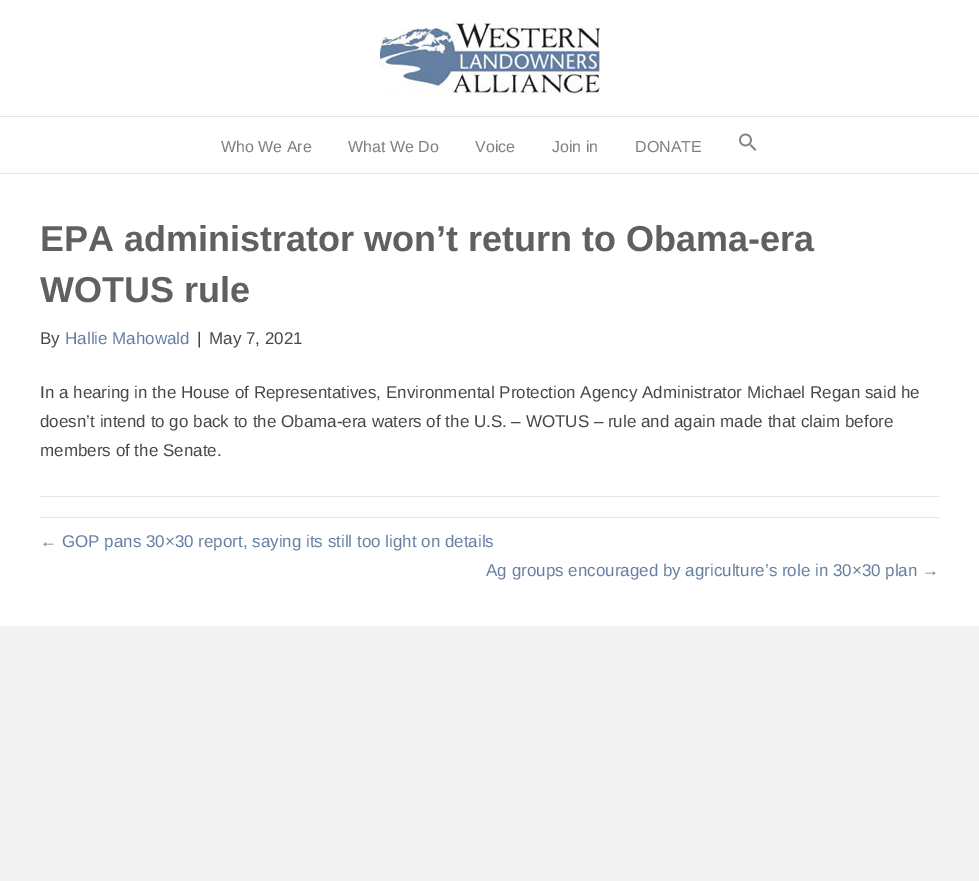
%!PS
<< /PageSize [979 881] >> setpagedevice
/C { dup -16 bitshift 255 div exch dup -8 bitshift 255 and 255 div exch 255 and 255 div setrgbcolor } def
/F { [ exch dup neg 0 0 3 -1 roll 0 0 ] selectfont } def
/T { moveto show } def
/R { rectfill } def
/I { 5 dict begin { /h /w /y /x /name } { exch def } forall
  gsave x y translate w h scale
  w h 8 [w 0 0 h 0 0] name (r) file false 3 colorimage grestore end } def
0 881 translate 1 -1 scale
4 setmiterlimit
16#F2F2F2 C
0 0 979 881 R
16#FFFFFF C
0 0 979 173 R
(1.rgb) 380 20 220 76 I
16#E6E6E6 C
0 116 979 1 R
0 173 979 1 R
/LiberationSans-Regular 16 F
16#808080 C
(Who We Are) 221 152 T
(What We Do) 348 152 T
(Voice) 475 152 T
(Join in) 552 152 T
(DONATE) 635 152 T
(2.rgb) 739 133 18 18 I
16#FFFFFF C
0 174 979 452 R
/LiberationSans-Bold 36 F
16#606060 C
(EPA administrator won’t return to Obama-era) 40 251 T
(WOTUS rule) 40 302 T
/LiberationSans-Regular 17 F
16#474747 C
(By) 40 344 T
16#657FA2 C
(Hallie Mahowald) 65 344 T
16#474747 C
(|) 197 344 T
(May 7, 2021) 209 344 T
(In a hearing in the House of Representatives, Environmental Protection Agency Administrator Michael Regan said he) 40 398 T
(doesn’t intend to go back to the Obama-era waters of the U.S. – WOTUS – rule and again made that claim before) 40 427 T
(members of the Senate.) 40 456 T
16#E6E6E6 C
40 496 899 1 R
40 517 899 1 R
16#657FA2 C
(← GOP pans 30×30 report, saying its still too light on details) 40 547 T
(Ag groups encouraged by agriculture’s role in 30×30 plan →) 486 576 T
showpage
